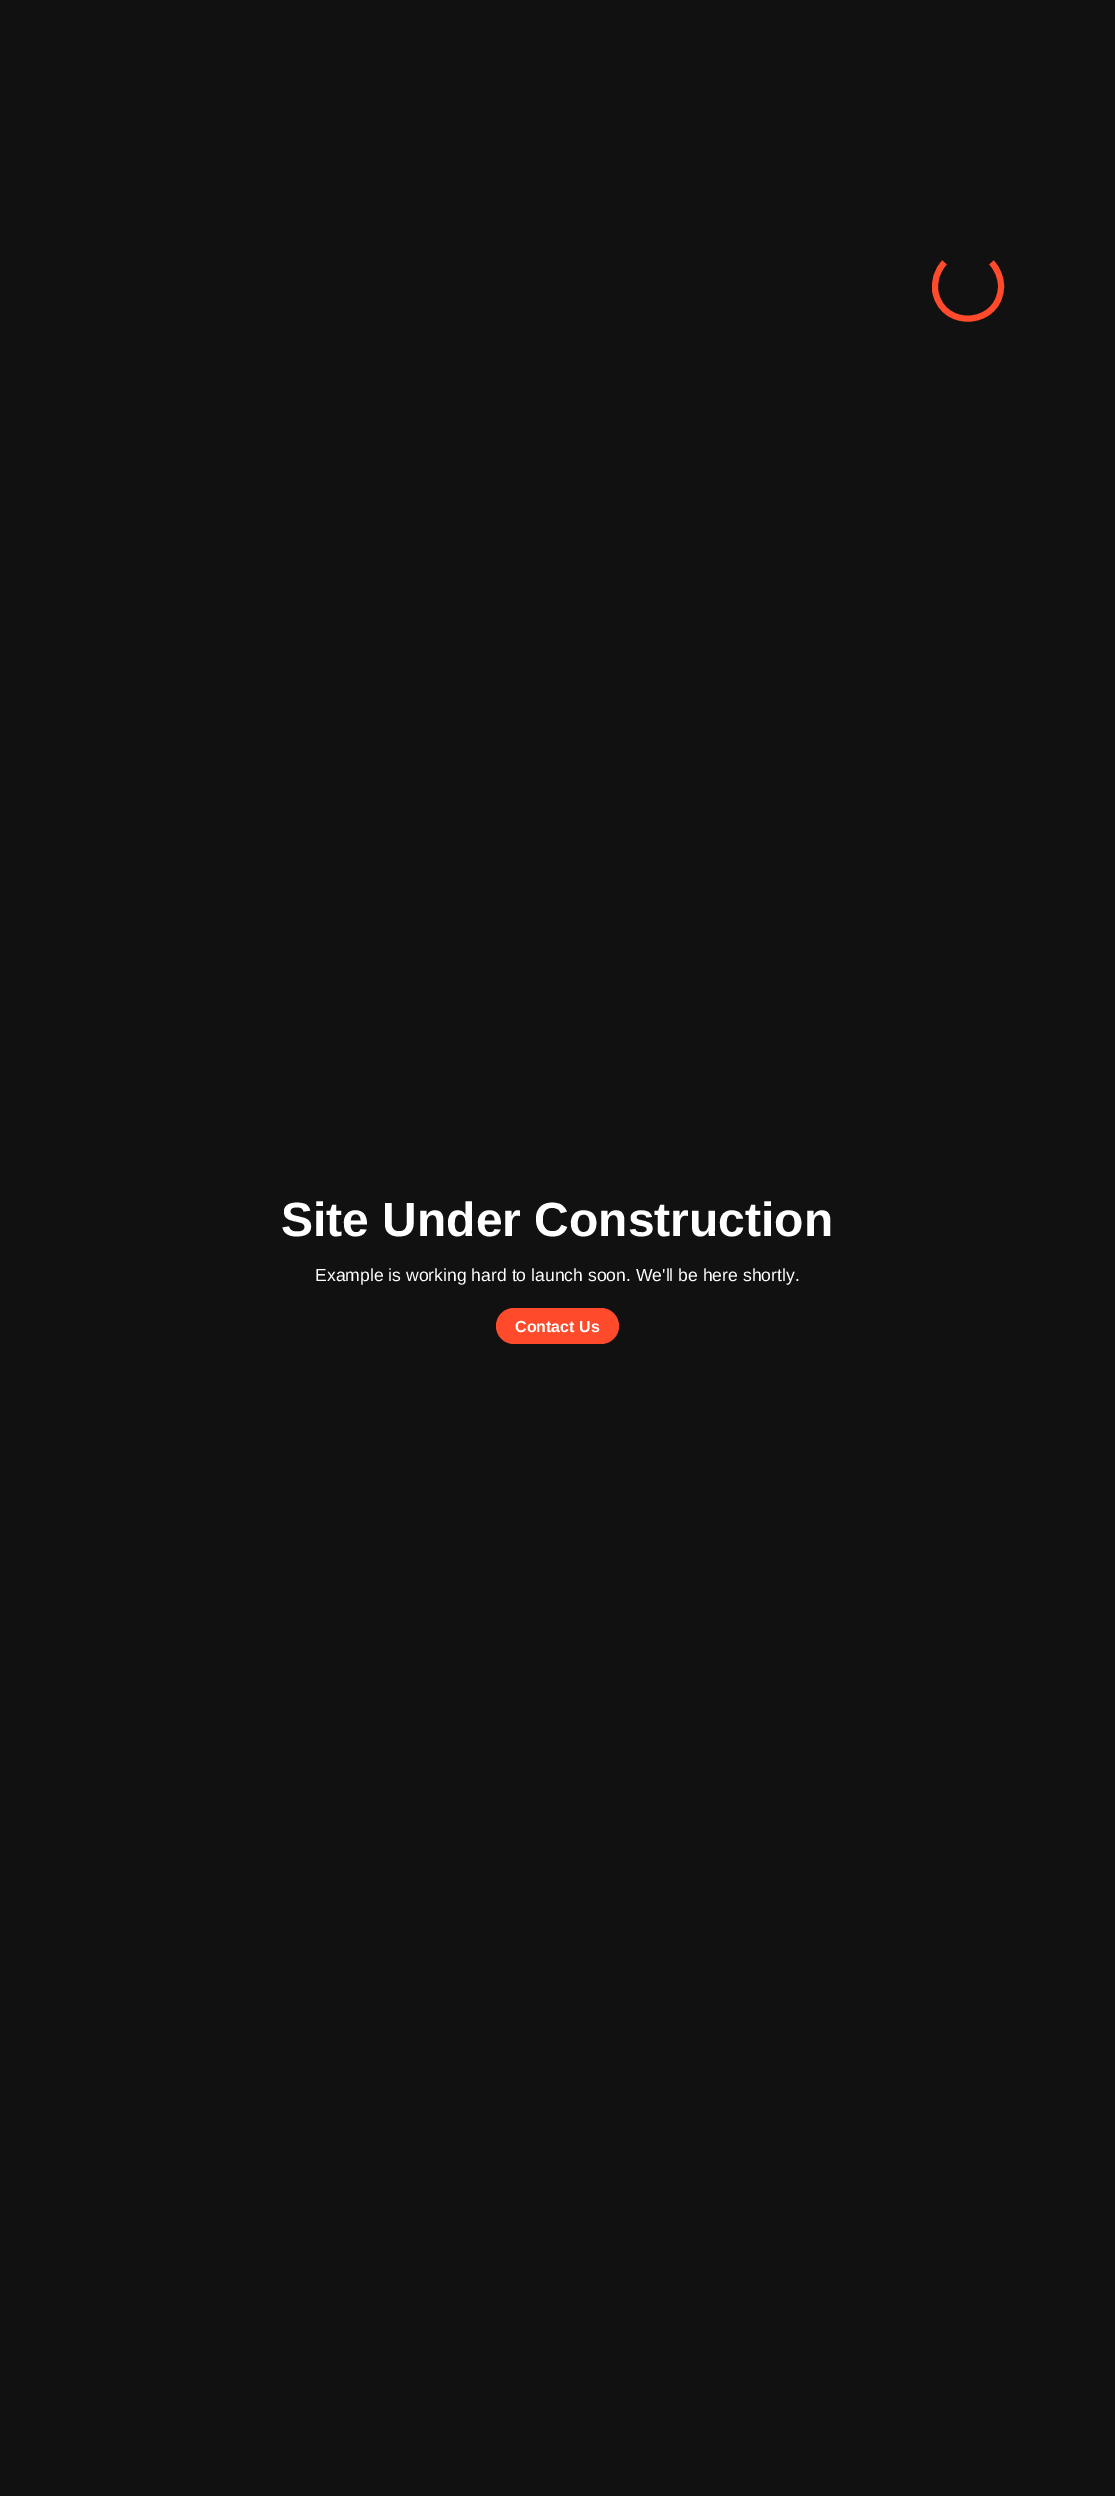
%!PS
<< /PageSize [1115 2496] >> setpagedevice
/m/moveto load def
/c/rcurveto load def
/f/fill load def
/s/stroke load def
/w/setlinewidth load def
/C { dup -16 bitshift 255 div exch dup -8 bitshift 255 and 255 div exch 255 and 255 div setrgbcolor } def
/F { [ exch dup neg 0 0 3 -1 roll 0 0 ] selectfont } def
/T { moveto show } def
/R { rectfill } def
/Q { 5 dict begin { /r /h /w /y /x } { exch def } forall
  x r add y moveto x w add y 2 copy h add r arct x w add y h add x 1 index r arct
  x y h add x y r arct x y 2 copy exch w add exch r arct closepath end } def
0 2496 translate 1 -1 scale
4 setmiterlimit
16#111111 C
0 0 1115 2496 R
16#FF4B2B C
6 w
991.5 262.5 m 6 6.5 9.5 15 9.5 23.5 c 0 39.5 -57.5 45 -65.5 6.5 c -2 -11 1.5 -22 9 -30 c s
/LiberationSans-Bold 48 F
16#FFFFFF C
(Site Under Construction) 281 1236 T
/LiberationSans-Regular 17.6 F
(Example is working hard to launch soon. We'll be here shortly.) 315 1281 T
16#FF4B2B C
496 1308 123 36 18 Q f
/LiberationSans-Bold 16 F
16#FFFFFF C
(Contact Us) 515 1332 T
showpage
